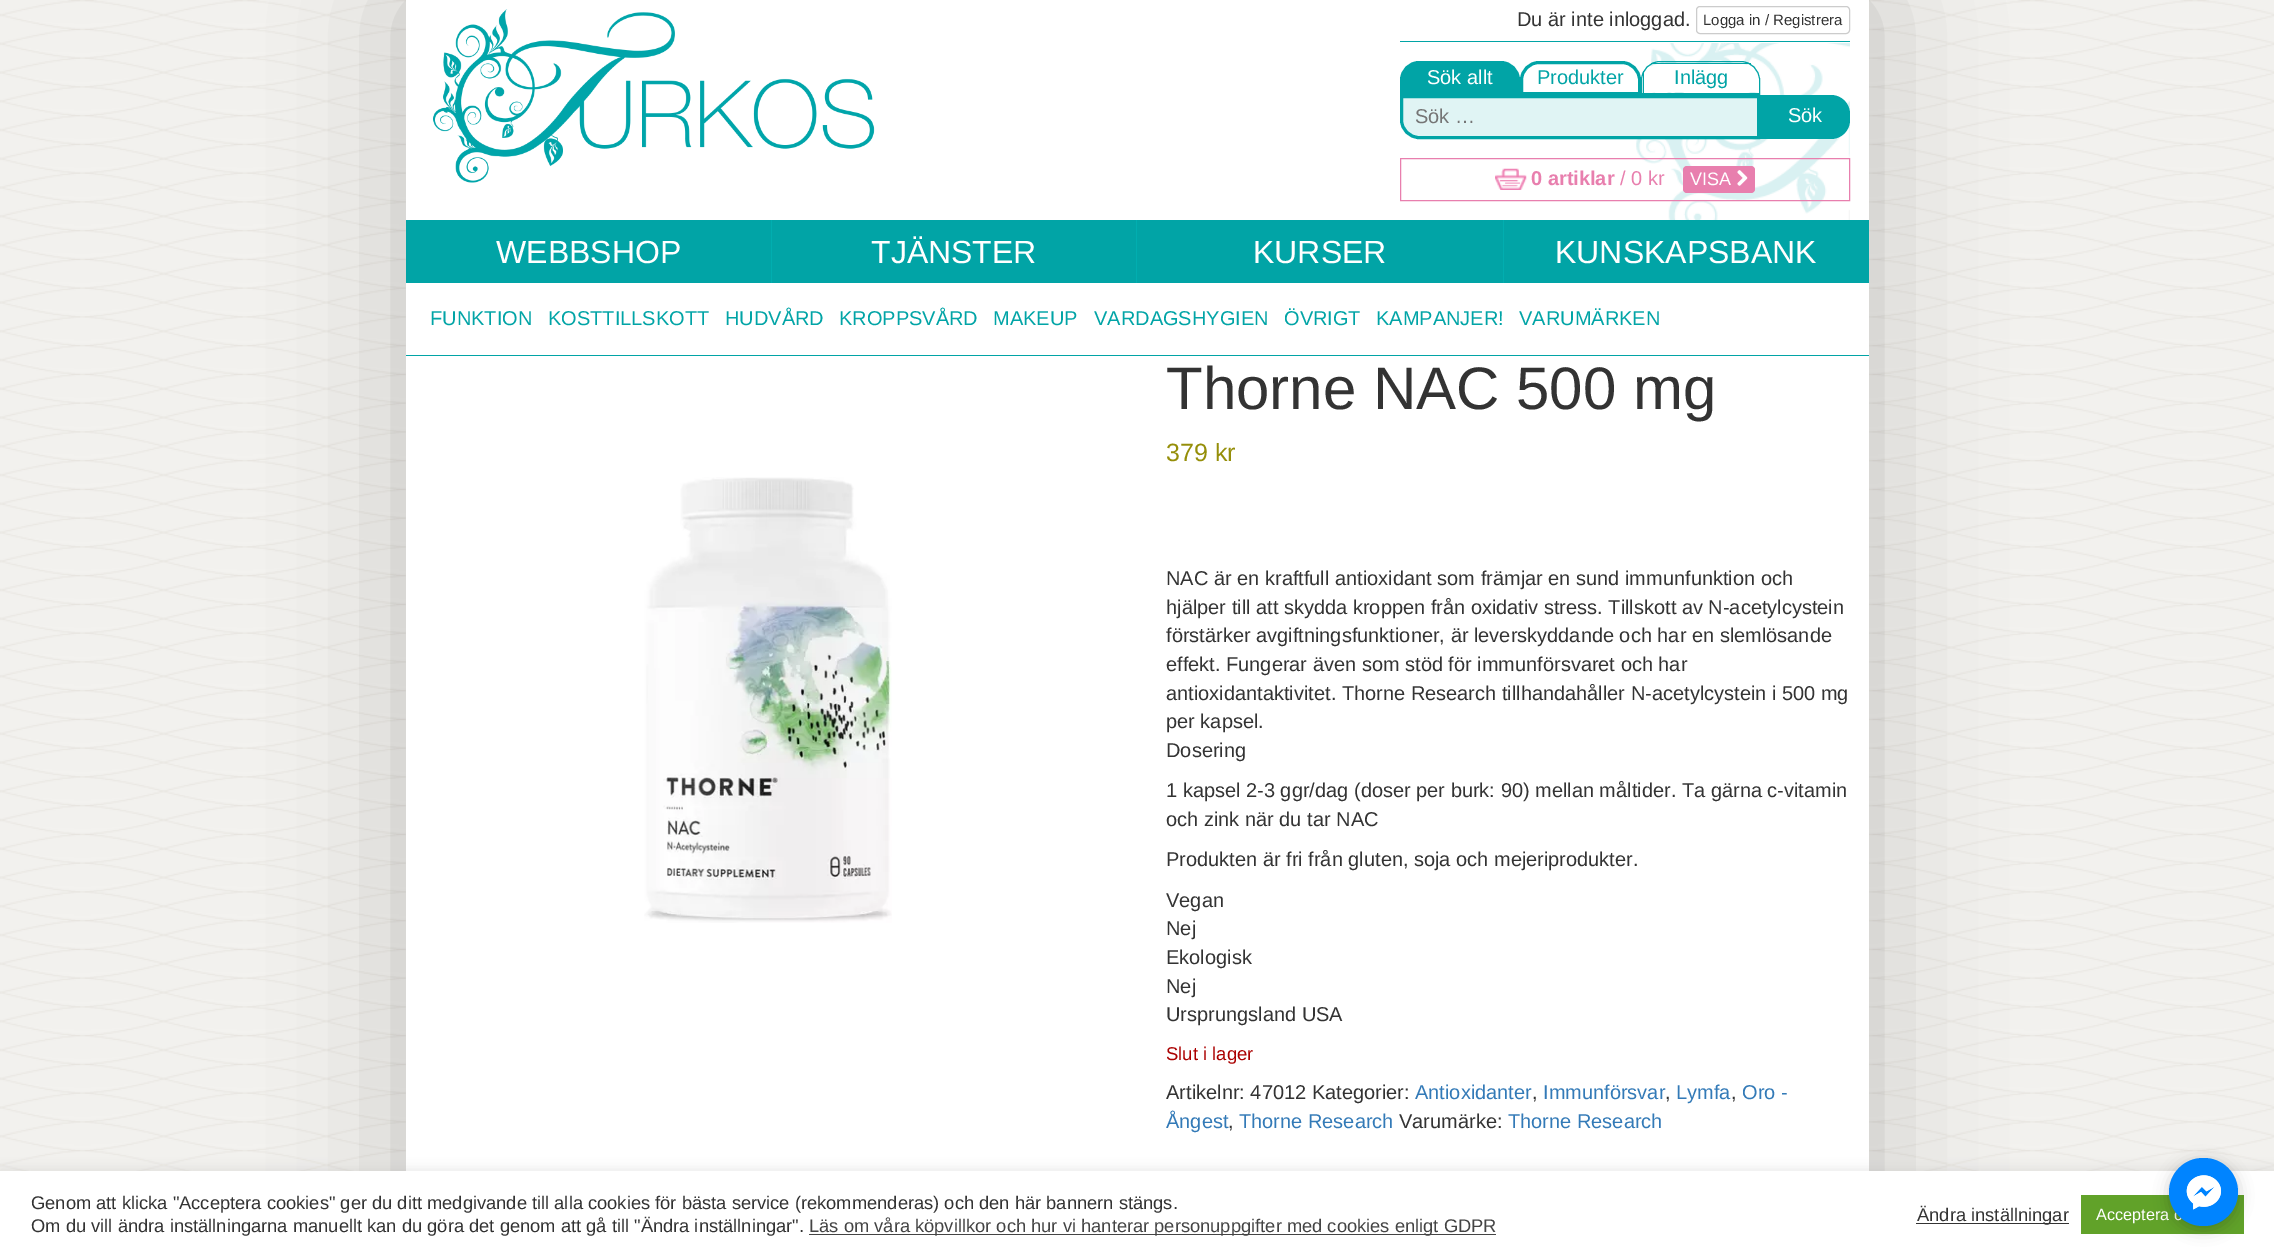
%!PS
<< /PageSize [2274 1257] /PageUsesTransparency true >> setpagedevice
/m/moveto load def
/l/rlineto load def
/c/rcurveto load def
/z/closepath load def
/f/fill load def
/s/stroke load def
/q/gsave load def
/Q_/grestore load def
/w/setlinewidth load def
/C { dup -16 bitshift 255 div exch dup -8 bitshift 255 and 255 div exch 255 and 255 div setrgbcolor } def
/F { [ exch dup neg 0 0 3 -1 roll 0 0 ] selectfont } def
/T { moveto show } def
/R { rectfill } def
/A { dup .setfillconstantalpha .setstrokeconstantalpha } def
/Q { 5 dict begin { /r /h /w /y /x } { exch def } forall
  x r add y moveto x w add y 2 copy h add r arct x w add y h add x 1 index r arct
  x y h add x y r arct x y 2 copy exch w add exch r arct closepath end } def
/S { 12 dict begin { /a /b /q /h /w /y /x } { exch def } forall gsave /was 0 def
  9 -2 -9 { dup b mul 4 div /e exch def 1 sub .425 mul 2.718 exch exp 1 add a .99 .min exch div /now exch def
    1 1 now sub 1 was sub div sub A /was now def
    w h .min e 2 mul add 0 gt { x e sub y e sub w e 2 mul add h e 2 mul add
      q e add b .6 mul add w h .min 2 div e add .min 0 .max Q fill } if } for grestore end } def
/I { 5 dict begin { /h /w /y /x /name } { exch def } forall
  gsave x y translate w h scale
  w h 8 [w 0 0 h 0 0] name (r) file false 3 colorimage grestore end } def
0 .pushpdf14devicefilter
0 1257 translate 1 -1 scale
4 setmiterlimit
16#FFFFFF C
0 0 2274 1257 R
(1.rgb) 0 0 2274 1171 I
16#000000 C
406 0 1463 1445 0 62.5 .2 S
16#FFFFFF C
406 0 1463 1171 R
(2.rgb) 1636 43 214 177 I
(3.rgb) 433 9 442 174 I
16#01A4A6 C
1400 41 450 1 R
/LiberationSans-Regular 20 F
16#333333 C
(Du är inte inloggad.) 1517 26 T
16#CCCCCC C
1696.5 6.5 153 27 3.5 Q s
/LiberationSans-Regular 15 F
16#333333 C
(Logga in / Registrera) 1703 25 T
16#01A4A6 C
1419 62.5 m 82 0 l 9.5 0 17.5 8 17.5 17.5 c 0 13.5 l -117 0 l 0 -13.5 l 0 -9.5 8 -17.5 17.5 -17.5 c z q f Q_
3 w
s
/LiberationSans-Regular 20 F
16#FFFFFF C
(Sök allt) 1427 84 T
16#01A4A6 C
1539 62.5 m 83 0 l 9.5 0 17.5 8 17.5 17.5 c 0 13.5 l -118 0 l 0 -13.5 l 0 -9.5 8 -17.5 17.5 -17.5 c z s
(Produkter) 1537 84 T
16#FFFFFF C
1660 64 m 81 0 l 10 0 18 7 18 16 c 0 12 l -115 0 l 0 -12 l 0 -9 7 -16 16 -16 c z f
16#01A4A6 C
1 w
1660 61.5 m 81 0 l 10 0 18.5 8.5 18.5 18.5 c 0 14.5 l -118 0 l 0 -14.5 l 0 -10 8.5 -18.5 18.5 -18.5 c z s
1651 63 100 1 R
1641 93 119 1 R
1643 71 1 24 R
(Inlägg) 1674 84 T
16#E0F4F4 C
1401.5 96.5 m 357 0 l 0 41 l -339.5 0 l -9.5 0 -17.5 -8 -17.5 -17.5 c z q f Q_
16#01A4A6 C
3 w
s
16#757575 C
(Sök …) 1415 123 T
16#01A4A6 C
1760 95 m 71 0 l 10.5 0 19 8.5 19 19 c 0 6 l 0 10.5 -8.5 19 -19 19 c -71 0 l z f
16#FFFFFF C
(Sök) 1788 122 T
16#E87FAE C
1 w
1400.5 158.5 449 42 rectstroke
(4.rgb) 1495 168 32 22 I
/LiberationSans-Bold 20 F
(0 artiklar) 1531 185 T
/LiberationSans-Regular 20 F
(/ 0 kr) 1620 185 T
1683 166 72 27 4 Q f
/LiberationSans-Regular 18 F
16#FFFFFF C
(VISA) 1690 185 T
(5.rgb) 1737 170 11 16 I
16#01A4A6 C
406 355 1463 1 R
406 220 1463 63 R
16#01AEB0 C
771 220 1 63 R
/LiberationSans-Regular 32 F
16#FFFFFF C
(WEBBSHOP) 496 263 T
16#01AEB0 C
1136 220 1 63 R
16#FFFFFF C
(TJÄNSTER) 871 263 T
16#01AEB0 C
1503 220 1 63 R
16#FFFFFF C
(KURSER) 1253 263 T
(KUNSKAPSBANK) 1555 263 T
/LiberationSans-Regular 20 F
16#01A4A6 C
(FUNKTION) 430 325 T
(KOSTTILLSKOTT) 548 325 T
(HUDVÅRD) 725 325 T
(KROPPSVÅRD) 839 325 T
(MAKEUP) 993 325 T
(VARDAGSHYGIEN) 1094 325 T
(ÖVRIGT) 1284 325 T
(KAMPANJER!) 1376 325 T
(VARUMÄRKEN) 1519 325 T
(6.rgb) 644 477 248 446 I
/LiberationSans-Regular 60 F
16#333333 C
(Thorne NAC 500 mg) 1166 409 T
/LiberationSans-Regular 25 F
16#958E09 C
(379 kr) 1166 461 T
/LiberationSans-Regular 20 F
16#333333 C
(NAC är en kraftfull antioxidant som främjar en sund immunfunktion och) 1166 585 T
(hjälper till att skydda kroppen från oxidativ stress. Tillskott av N-acetylcystein) 1166 614 T
(förstärker avgiftningsfunktioner, är leverskyddande och har en slemlösande) 1166 642 T
(effekt. Fungerar även som stöd för immunförsvaret och har) 1166 671 T
(antioxidantaktivitet. Thorne Research tillhandahåller N-acetylcystein i 500 mg) 1166 700 T
(per kapsel.) 1166 728 T
(Dosering) 1166 757 T
(1 kapsel 2-3 ggr/dag \(doser per burk: 90\) mellan måltider. Ta gärna c-vitamin) 1166 797 T
(och zink när du tar NAC) 1166 826 T
(Produkten är fri från gluten, soja och mejeriprodukter.) 1166 866 T
(Vegan) 1166 907 T
(Nej) 1166 935 T
(Ekologisk) 1166 964 T
(Nej) 1166 993 T
(Ursprungsland USA) 1166 1021 T
/LiberationSans-Regular 18.5 F
16#AA0000 C
(Slut i lager) 1166 1060 T
/LiberationSans-Regular 20 F
16#333333 C
(Artikelnr: 47012 Kategorier:) 1166 1099 T
16#337AB7 C
(Antioxidanter) 1415 1099 T
16#333333 C
(,) 1532 1099 T
16#337AB7 C
(Immunförsvar) 1543 1099 T
16#333333 C
(,) 1665 1099 T
16#337AB7 C
(Lymfa) 1676 1099 T
16#333333 C
(,) 1731 1099 T
16#337AB7 C
(Oro -) 1742 1099 T
(Ångest) 1166 1128 T
16#333333 C
(,) 1228 1128 T
16#337AB7 C
(Thorne Research) 1239 1128 T
16#333333 C
(Varumärke:) 1399 1128 T
16#337AB7 C
(Thorne Research) 1508 1128 T
16#ACABAB C
0 1170 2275 86 0 6 .3 S
16#FFFFFF C
0 1171 2274 86 R
/LiberationSans-Regular 18.33 F
16#333333 C
(Genom att klicka "Acceptera cookies" ger du ditt medgivande till alla cookies för bästa service \(rekommenderas\) och den här bannern stängs.) 31 1209 T
(Om du vill ändra inställningarna manuellt kan du göra det genom att gå till "Ändra inställningar".) 31 1232 T
16#444444 C
809 1234 687 1 R
(Läs om våra köpvillkor och hur vi hanterar personuppgifter med cookies enligt GDPR) 809 1232 T
16#333333 C
1916 1223 153 1 R
(Ändra inställningar) 1917 1221 T
16#61A229 C
2081 1195 163 39 R
/LiberationSans-Regular 16.25 F
16#FFFFFF C
(Acceptera c) 2096 1220 T
16#000000 C
2169 1161 69 69 34.5 7.5 .2 S
16#0084FF C
2169 1158 69 68 34 Q f
(7.rgb) 2186 1175 36 35 I
.poppdf14devicefilter showpage
